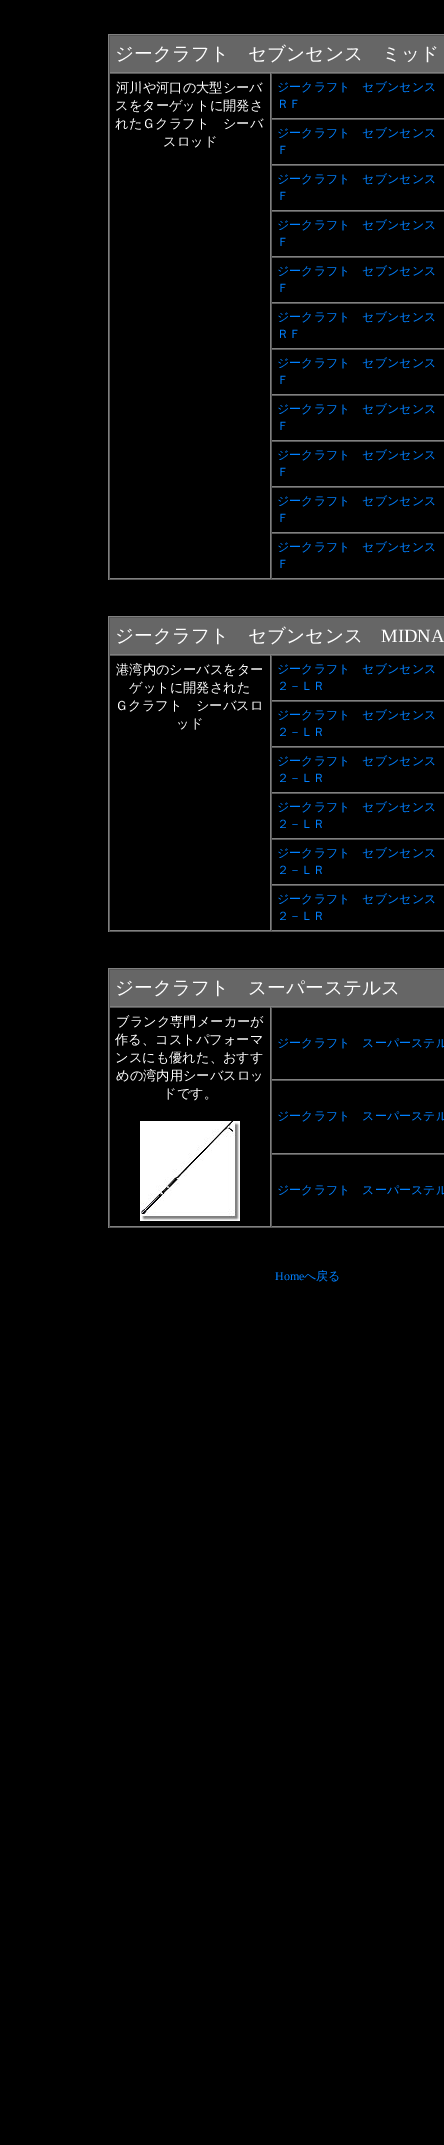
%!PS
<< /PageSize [444 2145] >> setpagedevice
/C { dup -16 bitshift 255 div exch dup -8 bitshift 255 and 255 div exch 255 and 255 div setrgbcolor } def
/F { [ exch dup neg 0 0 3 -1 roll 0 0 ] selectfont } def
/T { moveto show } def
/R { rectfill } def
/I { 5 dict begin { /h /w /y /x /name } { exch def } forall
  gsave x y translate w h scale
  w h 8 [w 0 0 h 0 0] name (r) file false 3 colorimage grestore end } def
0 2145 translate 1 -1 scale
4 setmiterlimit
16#000000 C
0 0 444 2145 R
16#808080 C
108 34 336 1 R
16#555555 C
108 579 336 1 R
16#808080 C
108 34 1 546 R
16#666666 C
110 36 334 36 R
16#555555 C
109 35 335 1 R
16#808080 C
109 72 335 1 R
16#555555 C
109 35 1 38 R
/WenQuanYiZenHei-Medium 18.7 F
16#FFFFFF C
(ジークラフト　セブンセンス　ミッド) 115 60 T
16#555555 C
109 73 335 1 R
16#808080 C
270 73 1 506 R
109 578 335 1 R
16#555555 C
109 73 1 506 R
/WenQuanYiZenHei-Medium 13.25 F
16#FFFFFF C
(河川や河口の大型シーバ) 116 92 T
(スをターゲットに開発さ) 115 110 T
(れたＧクラフト　シーバ) 115 128 T
(スロッド) 163 146 T
16#808080 C
271 118 173 1 R
16#555555 C
271 73 1 46 R
/WenQuanYiZenHei-Medium 12 F
16#0080FF C
(ジークラフト　セブンセンス) 277 91 T
(ＲＦ) 277 108 T
16#555555 C
271 119 173 1 R
16#808080 C
271 164 173 1 R
16#555555 C
271 119 1 46 R
16#0080FF C
(ジークラフト　セブンセンス) 277 137 T
(Ｆ) 277 154 T
16#555555 C
271 165 173 1 R
16#808080 C
271 210 173 1 R
16#555555 C
271 165 1 46 R
16#0080FF C
(ジークラフト　セブンセンス) 277 183 T
(Ｆ) 277 200 T
16#555555 C
271 211 173 1 R
16#808080 C
271 256 173 1 R
16#555555 C
271 211 1 46 R
16#0080FF C
(ジークラフト　セブンセンス) 277 229 T
(Ｆ) 277 246 T
16#555555 C
271 257 173 1 R
16#808080 C
271 302 173 1 R
16#555555 C
271 257 1 46 R
16#0080FF C
(ジークラフト　セブンセンス) 277 275 T
(Ｆ) 277 292 T
16#555555 C
271 303 173 1 R
16#808080 C
271 348 173 1 R
16#555555 C
271 303 1 46 R
16#0080FF C
(ジークラフト　セブンセンス) 277 321 T
(ＲＦ) 277 338 T
16#555555 C
271 349 173 1 R
16#808080 C
271 394 173 1 R
16#555555 C
271 349 1 46 R
16#0080FF C
(ジークラフト　セブンセンス) 277 367 T
(Ｆ) 277 384 T
16#555555 C
271 395 173 1 R
16#808080 C
271 440 173 1 R
16#555555 C
271 395 1 46 R
16#0080FF C
(ジークラフト　セブンセンス) 277 413 T
(Ｆ) 277 430 T
16#555555 C
271 441 173 1 R
16#808080 C
271 486 173 1 R
16#555555 C
271 441 1 46 R
16#0080FF C
(ジークラフト　セブンセンス) 277 459 T
(Ｆ) 277 476 T
16#555555 C
271 487 173 1 R
16#808080 C
271 532 173 1 R
16#555555 C
271 487 1 46 R
16#0080FF C
(ジークラフト　セブンセンス) 277 505 T
(Ｆ) 277 522 T
16#555555 C
271 533 173 1 R
271 533 1 46 R
16#0080FF C
(ジークラフト　セブンセンス) 277 551 T
(Ｆ) 277 568 T
16#808080 C
108 616 336 1 R
16#555555 C
108 931 336 1 R
16#808080 C
108 616 1 316 R
16#666666 C
110 618 334 36 R
16#555555 C
109 617 335 1 R
16#808080 C
109 654 335 1 R
16#555555 C
109 617 1 38 R
/WenQuanYiZenHei-Medium 18.7 F
16#FFFFFF C
(ジークラフト　セブンセンス) 115 642 T
/LiberationSerif-Regular 18.7 F
(MIDNA) 381 642 T
16#555555 C
109 655 335 1 R
16#808080 C
270 655 1 276 R
109 930 335 1 R
16#555555 C
109 655 1 276 R
/WenQuanYiZenHei-Medium 13.25 F
16#FFFFFF C
(港湾内のシーバスをター) 116 674 T
(ゲットに開発された) 129 692 T
(Ｇクラフト　シーバスロ) 115 710 T
(ッド) 176 728 T
16#808080 C
271 700 173 1 R
16#555555 C
271 655 1 46 R
/WenQuanYiZenHei-Medium 12 F
16#0080FF C
(ジークラフト　セブンセンス) 277 673 T
(２－ＬＲ) 277 690 T
16#555555 C
271 701 173 1 R
16#808080 C
271 746 173 1 R
16#555555 C
271 701 1 46 R
16#0080FF C
(ジークラフト　セブンセンス) 277 719 T
(２－ＬＲ) 277 736 T
16#555555 C
271 747 173 1 R
16#808080 C
271 792 173 1 R
16#555555 C
271 747 1 46 R
16#0080FF C
(ジークラフト　セブンセンス) 277 765 T
(２－ＬＲ) 277 782 T
16#555555 C
271 793 173 1 R
16#808080 C
271 838 173 1 R
16#555555 C
271 793 1 46 R
16#0080FF C
(ジークラフト　セブンセンス) 277 811 T
(２－ＬＲ) 277 828 T
16#555555 C
271 839 173 1 R
16#808080 C
271 884 173 1 R
16#555555 C
271 839 1 46 R
16#0080FF C
(ジークラフト　セブンセンス) 277 857 T
(２－ＬＲ) 277 874 T
16#555555 C
271 885 173 1 R
271 885 1 46 R
16#0080FF C
(ジークラフト　セブンセンス) 277 903 T
(２－ＬＲ) 277 920 T
16#808080 C
108 968 336 1 R
16#555555 C
108 1227 336 1 R
16#808080 C
108 968 1 260 R
16#666666 C
110 970 334 36 R
16#555555 C
109 969 335 1 R
16#808080 C
109 1006 335 1 R
16#555555 C
109 969 1 38 R
/WenQuanYiZenHei-Medium 18.7 F
16#FFFFFF C
(ジークラフト　スーパーステルス) 115 994 T
16#555555 C
109 1007 335 1 R
16#808080 C
270 1007 1 220 R
109 1226 335 1 R
16#555555 C
109 1007 1 220 R
/WenQuanYiZenHei-Medium 13.25 F
16#FFFFFF C
(ブランク専門メーカーが) 116 1026 T
(作る、コストパフォーマ) 115 1044 T
(ンスにも優れた、おすす) 115 1062 T
(めの湾内用シーバスロッ) 116 1080 T
(ドです。) 163 1098 T
(1.rgb) 140 1121 100 100 I
16#808080 C
271 1079 173 1 R
16#555555 C
271 1007 1 73 R
/WenQuanYiZenHei-Medium 12 F
16#0080FF C
(ジークラフト　スーパーステル) 277 1047 T
16#555555 C
271 1080 173 1 R
16#808080 C
271 1153 173 1 R
16#555555 C
271 1080 1 74 R
16#0080FF C
(ジークラフト　スーパーステル) 277 1120 T
16#555555 C
271 1154 173 1 R
271 1154 1 73 R
16#0080FF C
(ジークラフト　スーパーステル) 277 1194 T
/LiberationSerif-Regular 12 F
(Home) 275 1280 T
/WenQuanYiZenHei-Medium 12 F
(へ戻る) 304 1280 T
showpage
